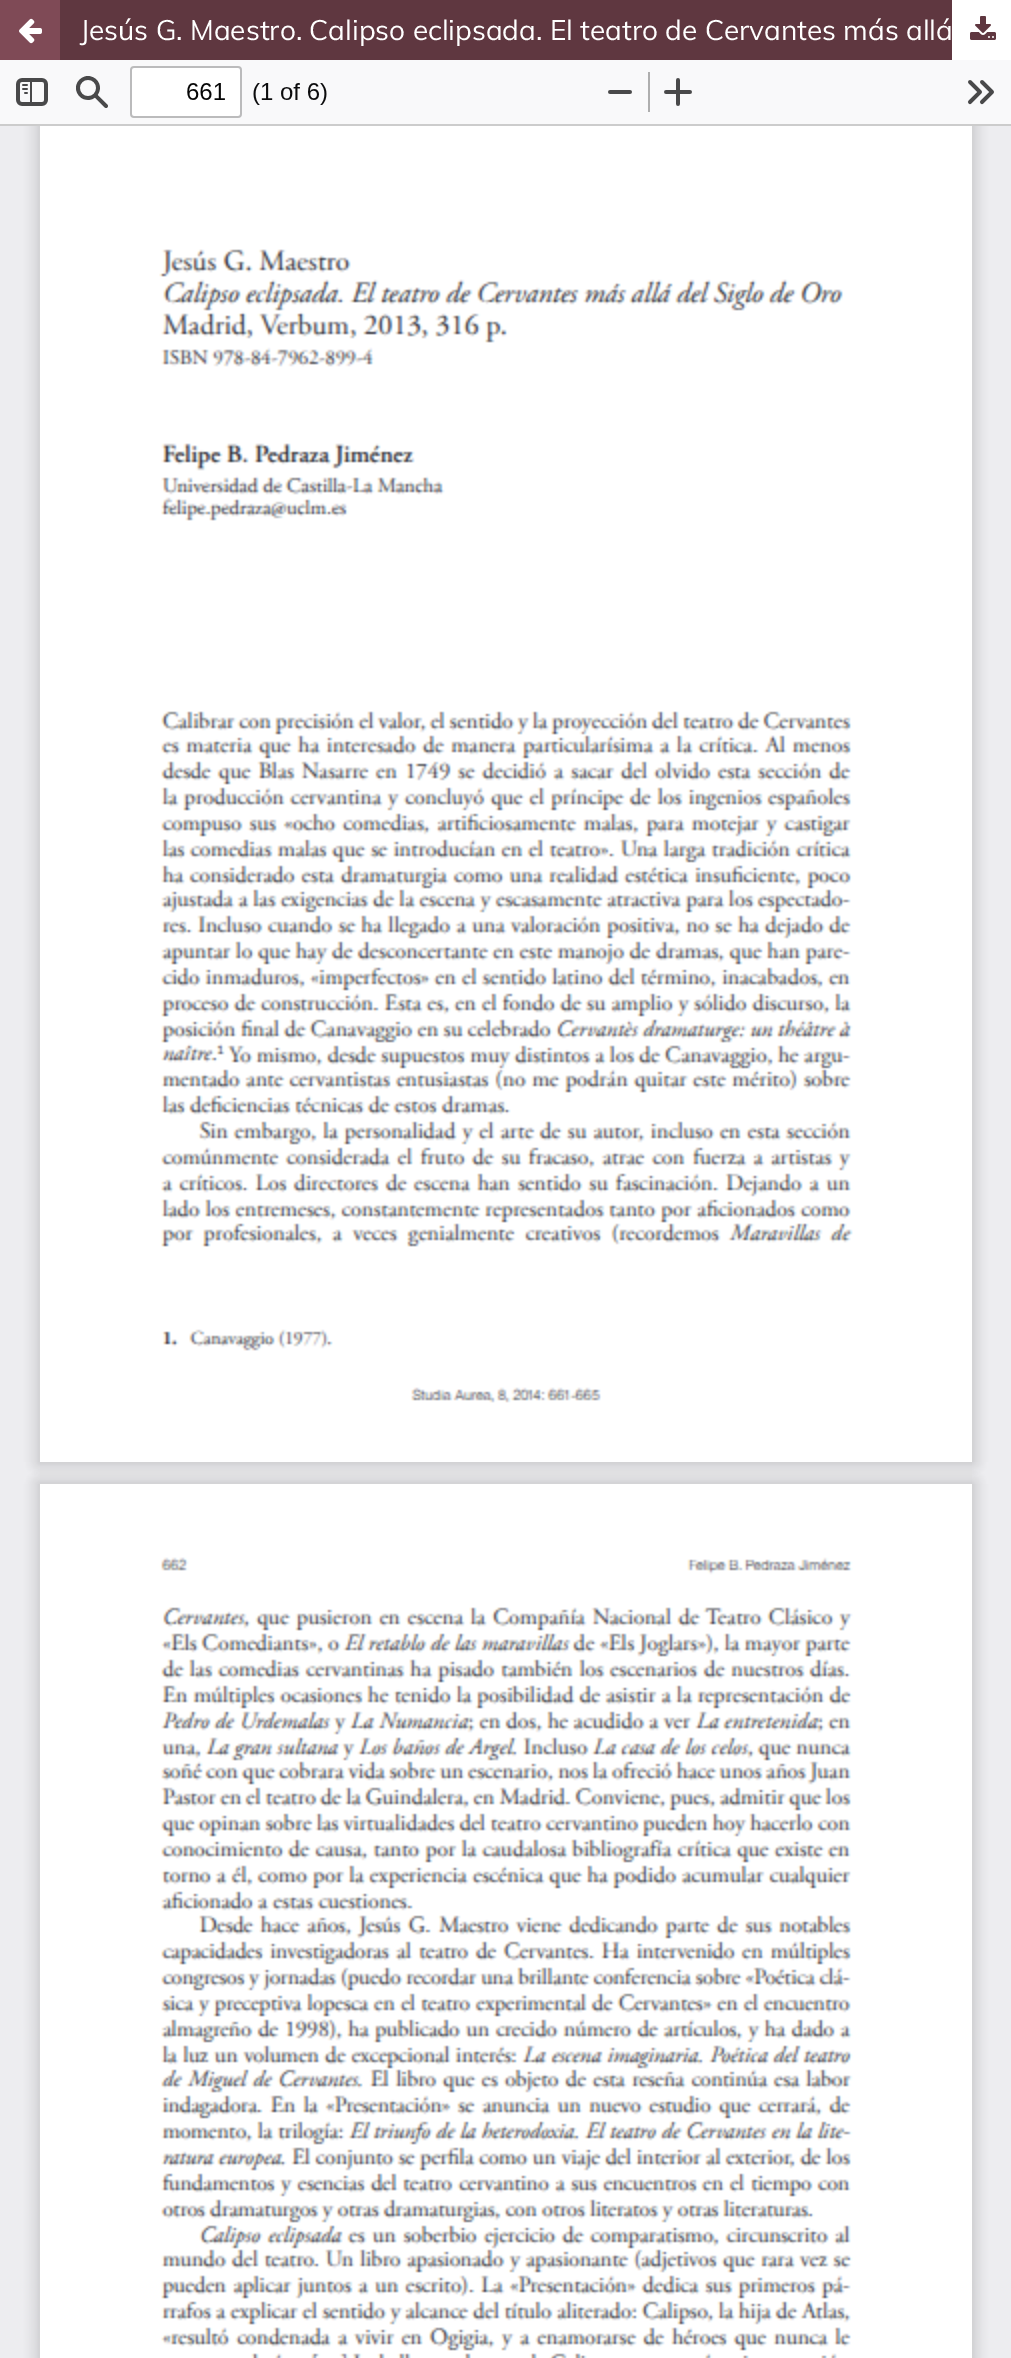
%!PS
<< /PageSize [1011 2358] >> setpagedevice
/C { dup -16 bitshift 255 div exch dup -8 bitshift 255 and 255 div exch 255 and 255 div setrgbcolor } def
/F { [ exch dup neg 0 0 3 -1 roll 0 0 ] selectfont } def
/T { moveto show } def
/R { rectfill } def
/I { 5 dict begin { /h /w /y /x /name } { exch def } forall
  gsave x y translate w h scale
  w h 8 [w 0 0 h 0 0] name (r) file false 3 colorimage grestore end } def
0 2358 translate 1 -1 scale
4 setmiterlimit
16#FFFFFF C
0 0 1011 2358 R
16#5F3740 C
60 0 892 60 R
16#7F4A56 C
0 0 60 60 R
(1.rgb) 19 18 23 26 I
/Muli-Regular 28 F
16#FFFFFF C
(Jesús G. Maestro. Calipso eclipsada. El teatro de Cervantes más allá) 80 40 T
(2.rgb) 970 16 26 24 I
(3.rgb) 0 60 1011 2298 I
showpage
